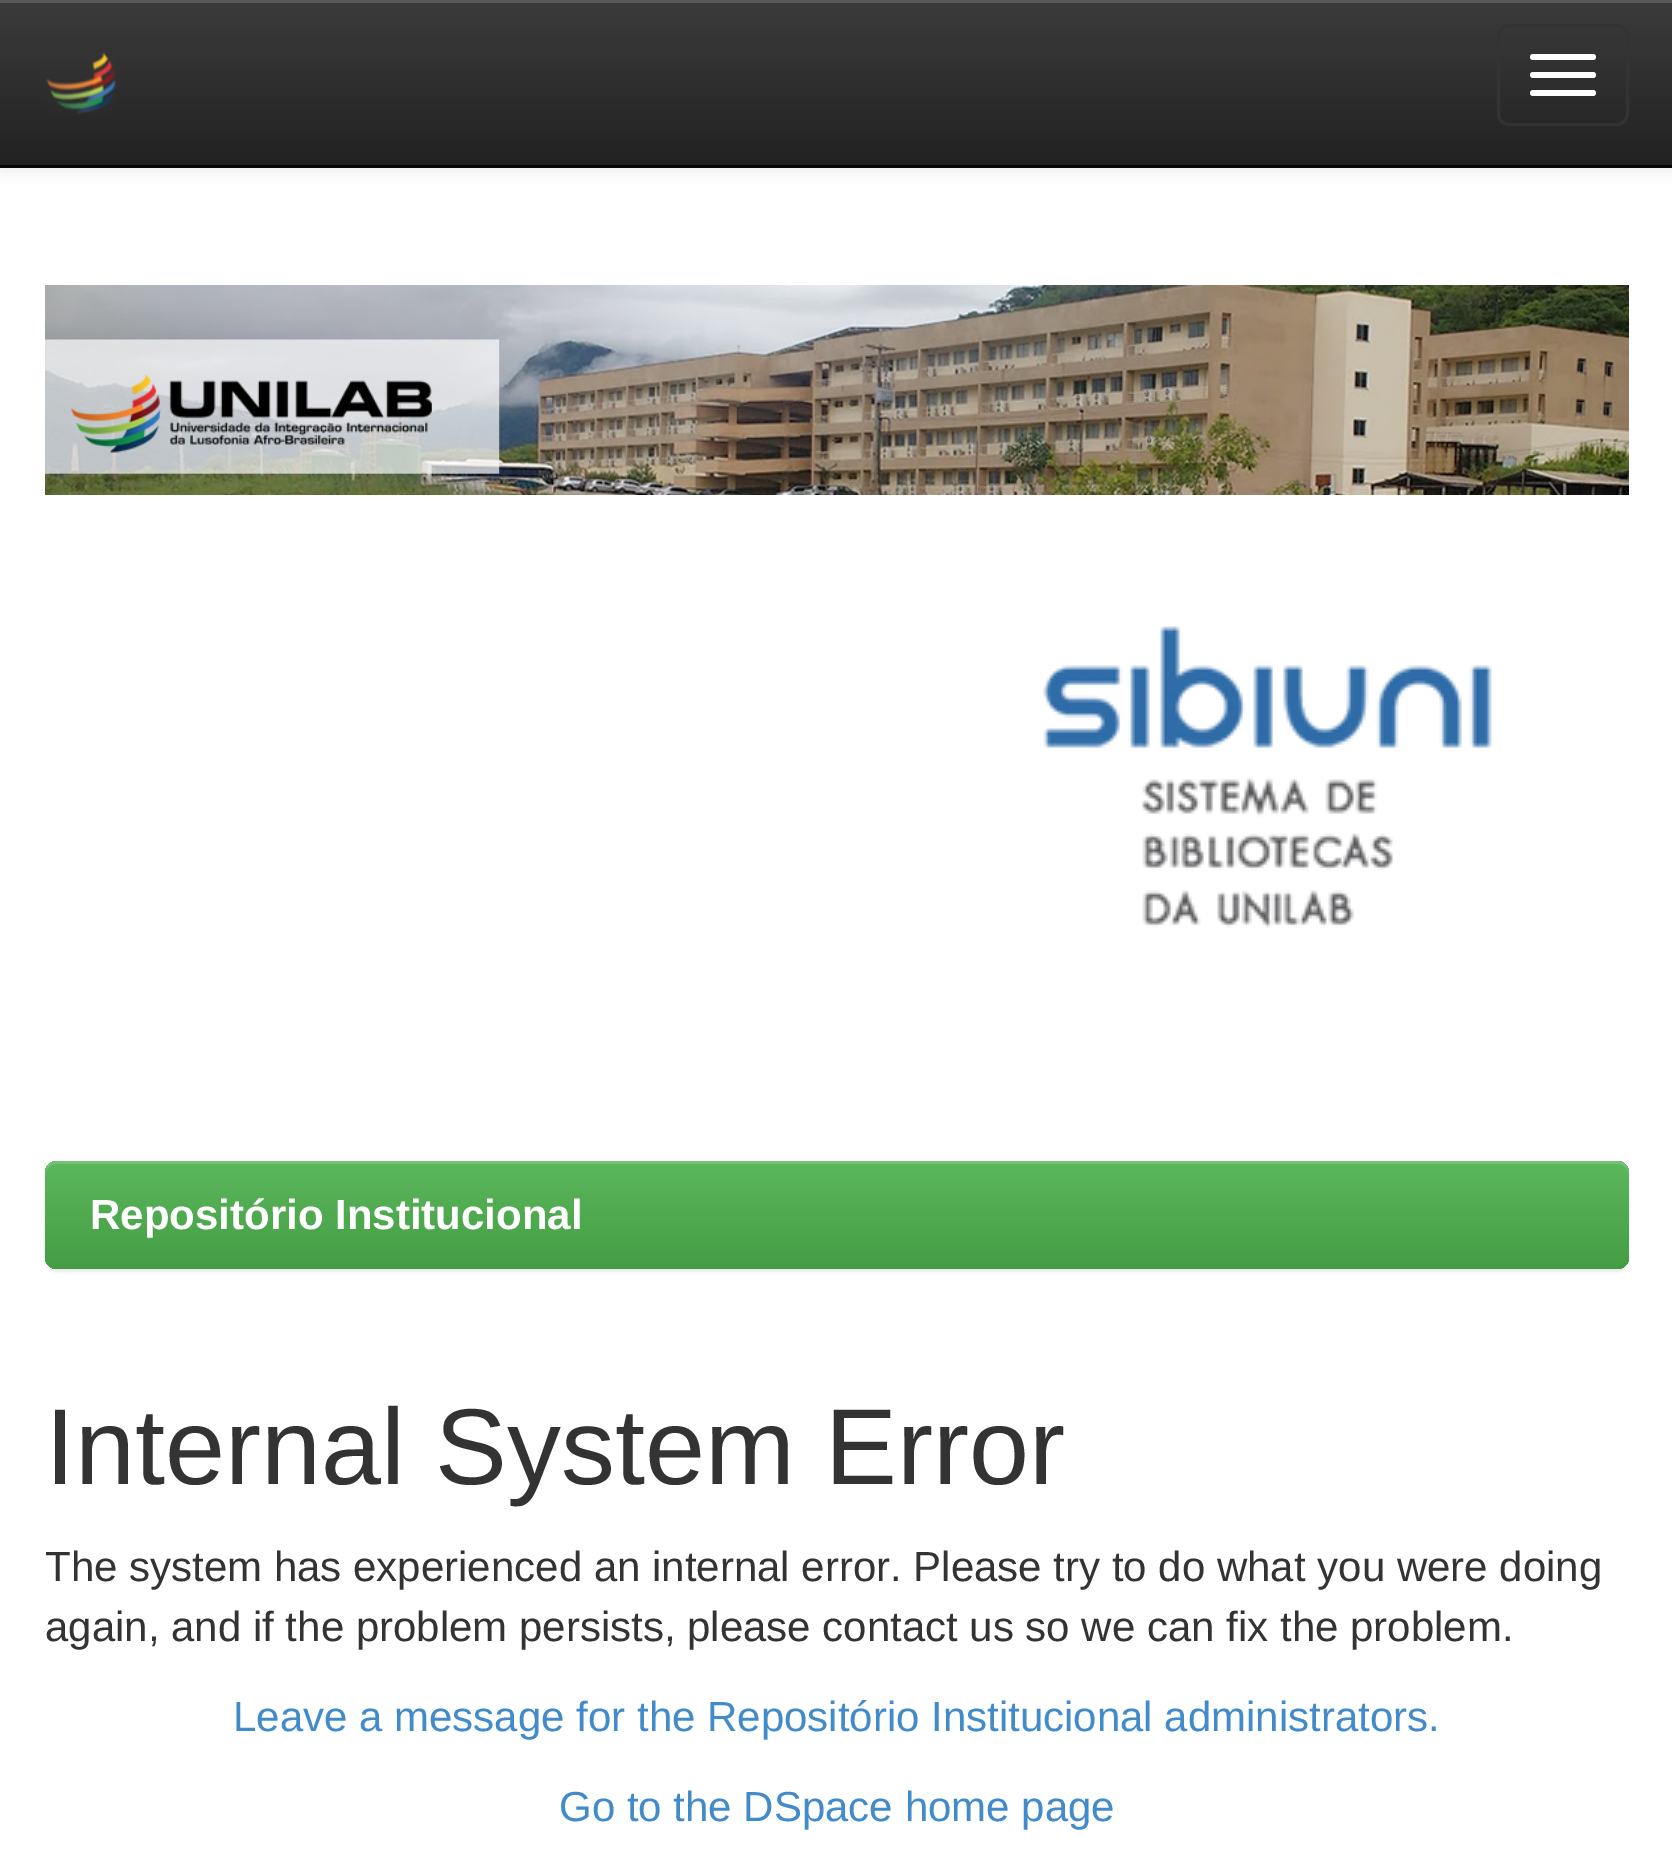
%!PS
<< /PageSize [1672 1856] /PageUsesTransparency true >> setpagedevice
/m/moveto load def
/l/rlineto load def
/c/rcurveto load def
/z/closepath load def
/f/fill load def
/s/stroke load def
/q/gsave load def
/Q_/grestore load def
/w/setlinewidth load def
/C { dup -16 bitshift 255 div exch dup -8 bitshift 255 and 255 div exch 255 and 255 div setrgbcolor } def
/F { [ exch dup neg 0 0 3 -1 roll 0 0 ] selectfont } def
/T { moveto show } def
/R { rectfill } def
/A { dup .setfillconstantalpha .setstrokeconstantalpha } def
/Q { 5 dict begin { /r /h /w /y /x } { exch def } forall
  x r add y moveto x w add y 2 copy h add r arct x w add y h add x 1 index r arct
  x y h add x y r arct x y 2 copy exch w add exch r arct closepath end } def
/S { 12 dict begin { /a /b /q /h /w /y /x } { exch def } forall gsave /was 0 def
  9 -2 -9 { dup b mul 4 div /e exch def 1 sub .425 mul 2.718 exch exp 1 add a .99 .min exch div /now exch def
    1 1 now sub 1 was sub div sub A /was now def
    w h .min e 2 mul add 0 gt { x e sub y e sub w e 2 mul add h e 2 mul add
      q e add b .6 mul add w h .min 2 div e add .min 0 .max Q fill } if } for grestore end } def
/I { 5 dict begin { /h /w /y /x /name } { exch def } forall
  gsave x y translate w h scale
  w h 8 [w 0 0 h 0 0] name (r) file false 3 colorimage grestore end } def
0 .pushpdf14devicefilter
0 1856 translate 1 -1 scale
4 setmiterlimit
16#FFFFFF C
0 0 1672 1856 R
16#000000 C
0 3 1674 168 0 7.5 .07 S
q 0 3 m 1672 0 l 0 162 l -1672 0 l z clip newpath
<< /ShadingType 2 /ColorSpace /DeviceRGB /Coords [837 0 837 165] /Extend [true true] /Function << /FunctionType 2 /Domain [0 1] /C0 [.235 .235 .235] /C1 [.133 .133 .133] /N 1 >> >> shfill Q_
16#595959 C
0 0 1672 3 R
16#080808 C
0 165 1672 3 R
(1.rgb) 46 52 70 63 I
16#333333 C
3 w
1498.5 25.5 129 99 10.5 Q s
16#FFFFFF C
1530 54 66 6 3 Q f
1530 72 66 6 3 Q f
1530 90 66 6 3 Q f
(2.rgb) 45 285 1584 210 I
(3.rgb) 1043 626 449 302 I
16#000000 C
45 1164 1584 108 12 1.5 .07 S
q 45 1161 1584 108 12 Q clip newpath
<< /ShadingType 2 /ColorSpace /DeviceRGB /Coords [837 1161 837 1269] /Extend [true true] /Function << /FunctionType 2 /Domain [0 1] /C0 [.361 .722 .361] /C1 [.267 .616 .267] /N 1 >> >> shfill Q_
0.15 A
16#FFFFFF C
57 1164 m 1560 0 l 7 0 12 5 12 12 c 0 -3 l 0 -7 -5 -12 -12 -12 c -1560 0 l -7 0 -12 5 -12 12 c 0 3 l 0 -7 5 -12 12 -12 c z f
/LiberationSans-Bold 42 F
1 A
(Repositório Institucional) 90 1229 T
/LiberationSans-Regular 108 F
16#333333 C
(Internal System Error) 45 1484 T
/LiberationSans-Regular 42 F
(The system has experienced an internal error. Please try to do what you were doing) 45 1581 T
(again, and if the problem persists, please contact us so we can fix the problem.) 45 1641 T
16#428BCA C
(Leave a message for the Repositório Institucional administrators.) 233 1731 T
(Go to the DSpace home page) 559 1821 T
.poppdf14devicefilter showpage
